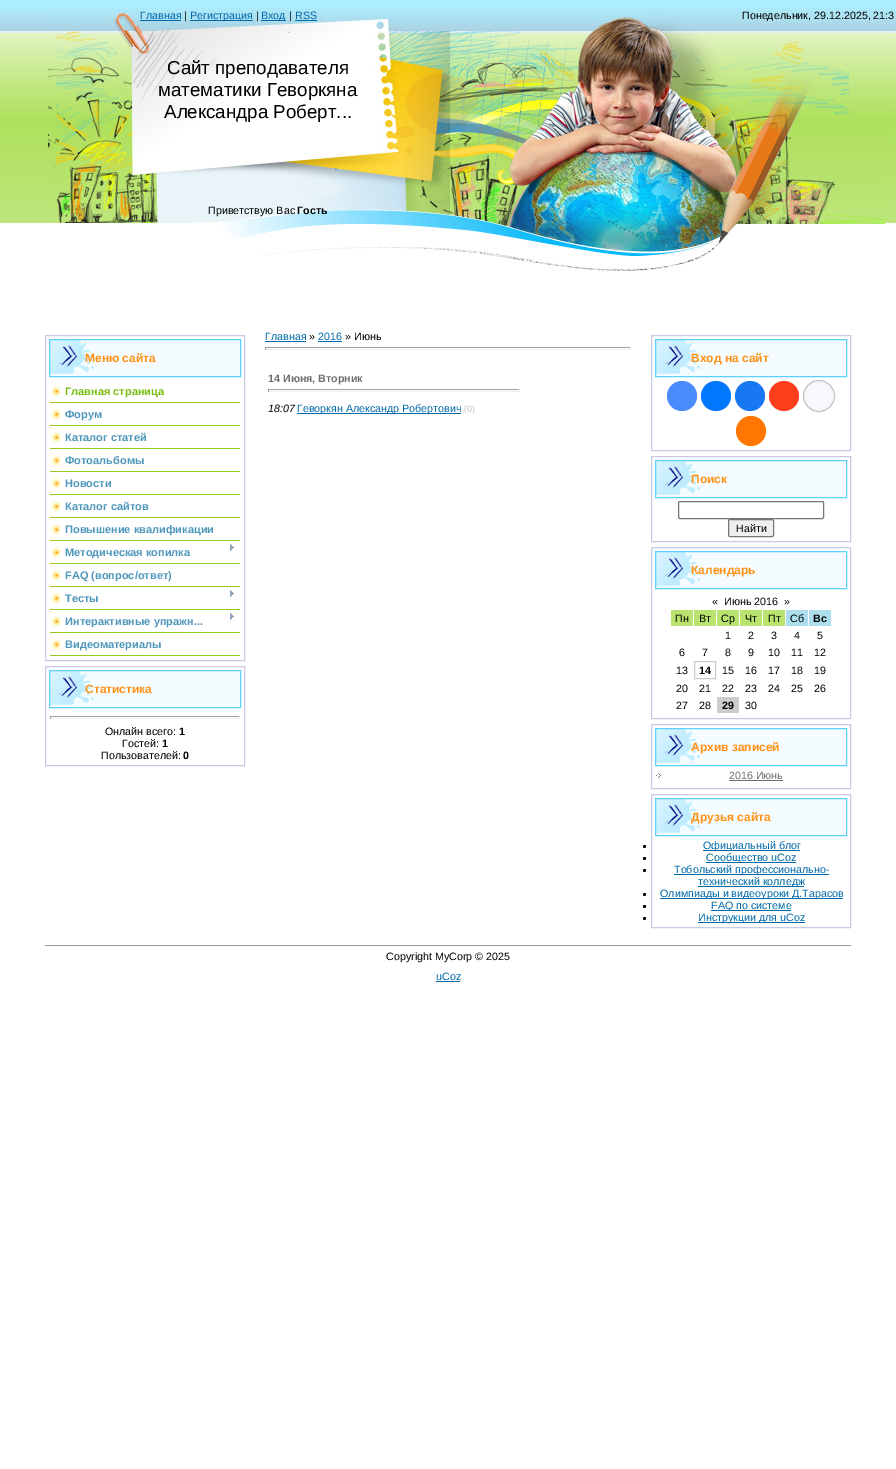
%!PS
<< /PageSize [896 1469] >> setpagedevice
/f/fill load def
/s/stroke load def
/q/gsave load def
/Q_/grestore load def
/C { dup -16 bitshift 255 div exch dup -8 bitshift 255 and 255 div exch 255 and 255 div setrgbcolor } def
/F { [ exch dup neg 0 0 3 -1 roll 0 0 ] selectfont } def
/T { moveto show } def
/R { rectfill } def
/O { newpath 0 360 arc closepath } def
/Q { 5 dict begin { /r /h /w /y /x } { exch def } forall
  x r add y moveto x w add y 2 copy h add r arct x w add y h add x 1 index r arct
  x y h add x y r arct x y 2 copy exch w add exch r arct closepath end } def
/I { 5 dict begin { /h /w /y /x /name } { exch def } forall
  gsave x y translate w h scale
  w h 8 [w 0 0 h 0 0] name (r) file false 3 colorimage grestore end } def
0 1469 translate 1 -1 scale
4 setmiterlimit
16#FFFFFF C
0 0 896 1469 R
(1.rgb) 0 0 896 223 I
(2.rgb) 47 8 838 263 I
/LiberationSans-Regular 10.7 F
16#0069A9 C
(Главная) 140 19 T
140 20 41 1 R
16#000000 C
(|) 184 19 T
16#0069A9 C
190 20 63 1 R
(Регистрация) 190 19 T
16#000000 C
(|) 256 19 T
16#0069A9 C
261 20 25 1 R
(Вход) 261 19 T
16#000000 C
(|) 289 19 T
16#0069A9 C
(RSS) 295 19 T
295 20 22 1 R
16#000000 C
(Понедельник, 29.12.2025, 21:3) 742 19 T
/LiberationSans-Regular 18.75 F
(Сайт преподавателя) 167 74 T
(математики Геворкяна) 158 96 T
(Александра Роберт...) 164 118 T
/LiberationSans-Regular 10.7 F
(Приветствую Вас) 208 214 T
/LiberationSans-Bold 10.7 F
(Гость) 297 214 T
16#CACAE6 C
45.5 335.5 199 325 rectstroke
16#F5FCFF C
50 340 190 36 R
(3.rgb) 50 340 44 34 I
16#5BD1FC C
49.5 339.5 191 37 rectstroke
/LiberationSans-Bold 12 F
16#FF9115 C
(Меню сайта) 85 362 T
(4.rgb) 50 385 11 12 I
16#97C821 C
50 402 190 1 R
/LiberationSans-Bold 11 F
16#79BD11 C
(Главная страница) 65 395 T
(4.rgb) 50 408 11 12 I
16#97C821 C
50 425 190 1 R
16#4F98BC C
(Форум) 65 418 T
(4.rgb) 50 431 11 12 I
16#97C821 C
50 448 190 1 R
16#4F98BC C
(Каталог статей) 65 441 T
(4.rgb) 50 454 11 12 I
16#97C821 C
50 471 190 1 R
16#4F98BC C
(Фотоальбомы) 65 464 T
(4.rgb) 50 477 11 12 I
16#97C821 C
50 494 190 1 R
16#4F98BC C
(Новости) 65 487 T
(4.rgb) 50 500 11 12 I
16#97C821 C
50 517 190 1 R
16#4F98BC C
(Каталог сайтов) 65 510 T
(4.rgb) 50 523 11 12 I
16#97C821 C
50 540 190 1 R
16#4F98BC C
(Повышение квалификации) 65 533 T
(4.rgb) 50 546 11 12 I
16#97C821 C
50 563 190 1 R
16#4F98BC C
(Методическая копилка) 65 556 T
(5.rgb) 230 544 4 7 I
(4.rgb) 50 569 11 12 I
16#97C821 C
50 586 190 1 R
16#4F98BC C
(FAQ \(вопрос/ответ\)) 65 579 T
(4.rgb) 50 592 11 12 I
16#97C821 C
50 609 190 1 R
16#4F98BC C
(Тесты) 65 602 T
(5.rgb) 230 590 4 7 I
(4.rgb) 50 615 11 12 I
16#97C821 C
50 632 190 1 R
16#4F98BC C
(Интерактивные упражн...) 65 625 T
(5.rgb) 230 613 4 7 I
(4.rgb) 50 638 11 12 I
16#97C821 C
50 655 190 1 R
16#4F98BC C
(Видеоматериалы) 65 648 T
16#CACAE6 C
45.5 666.5 199 99 rectstroke
16#F5FCFF C
50 671 190 36 R
(3.rgb) 50 671 44 34 I
16#5BD1FC C
49.5 670.5 191 37 rectstroke
/LiberationSans-Bold 12 F
16#FF9115 C
(Статистика) 85 693 T
16#9F9F9F C
50 716 190 1 R
16#EEEEEE C
239 716 1 3 R
50 718 190 1 R
16#9F9F9F C
50 716 1 3 R
/LiberationSans-Regular 10.7 F
16#000000 C
(Онлайн всего:) 105 735 T
/LiberationSans-Bold 10.7 F
(1) 179 735 T
/LiberationSans-Regular 10.7 F
(Гостей:) 122 747 T
/LiberationSans-Bold 10.7 F
(1) 162 747 T
/LiberationSans-Regular 10.7 F
(Пользователей:) 101 759 T
/LiberationSans-Bold 10.7 F
(0) 183 759 T
/LiberationSans-Regular 10.7 F
16#0069A9 C
(Главная) 265 340 T
265 341 41 1 R
16#000000 C
(») 309 340 T
16#0069A9 C
(2016) 318 340 T
318 341 24 1 R
16#000000 C
(» Июнь) 345 340 T
16#9F9F9F C
265 347 366 1 R
16#EEEEEE C
630 347 1 3 R
265 349 366 1 R
16#9F9F9F C
265 347 1 3 R
/LiberationSans-Bold 10.7 F
16#6E6E6E C
(14 Июня, Вторник) 268 382 T
16#9F9F9F C
268 389 252 1 R
16#EEEEEE C
519 389 1 3 R
268 391 252 1 R
16#9F9F9F C
268 389 1 3 R
/LiberationSans-Italic 10.7 F
16#000000 C
(18:07) 268 412 T
16#0069A9 C
297 413 164 1 R
/LiberationSans-Regular 10.7 F
(Геворкян Александр Робертович) 297 412 T
/LiberationSans-Regular 9 F
16#C3C3C3 C
(\(0\)) 464 412 T
16#CACAE6 C
651.5 335.5 199 115 rectstroke
16#F5FCFF C
656 340 190 36 R
(3.rgb) 656 340 44 34 I
16#5BD1FC C
655.5 339.5 191 37 rectstroke
/LiberationSans-Bold 12 F
16#FF9115 C
(Вход на сайт) 691 362 T
16#498BFA C
682 396 15 O f
16#0077FF C
716 396 15 O f
16#1877F2 C
750 396 15 O f
16#FC3F1D C
784 396 15 O f
16#F8F8FC C
819 396 15.5 O q f Q_
16#C4C4C4 C
s
16#FF7700 C
751 431 15 O f
16#CACAE6 C
651.5 456.5 199 85 rectstroke
16#F5FCFF C
656 461 190 36 R
(3.rgb) 656 461 44 34 I
16#5BD1FC C
655.5 460.5 191 37 rectstroke
16#FF9115 C
(Поиск) 691 483 T
16#767676 C
678.5 501.5 145 17 1.5 Q s
16#EFEFEF C
728.5 519.5 45 17 1.5 Q q f Q_
16#767676 C
s
/LiberationSans-Regular 10.7 F
16#000000 C
(Найти) 736 532 T
16#CACAE6 C
651.5 547.5 199 171 rectstroke
16#F5FCFF C
656 552 190 36 R
(3.rgb) 656 552 44 34 I
16#5BD1FC C
655.5 551.5 191 37 rectstroke
/LiberationSans-Bold 12 F
16#FF9115 C
(Календарь) 691 574 T
/LiberationSans-Regular 10.7 F
16#000000 C
(«) 712 605 T
(Июнь 2016) 724 605 T
(») 784 605 T
16#B7E36E C
671 610 22 16 R
16#000000 C
(Пн) 675 622 T
16#B7E36E C
694 610 22 16 R
16#000000 C
(Вт) 699 622 T
16#B7E36E C
717 610 22 16 R
16#000000 C
(Ср) 721 622 T
16#B7E36E C
740 610 22 16 R
16#000000 C
(Чт) 745 622 T
16#B7E36E C
763 610 22 16 R
16#000000 C
(Пт) 768 622 T
16#ACDEEE C
786 610 22 16 R
16#000000 C
(Сб) 790 622 T
16#ACDEEE C
809 610 22 16 R
/LiberationSans-Bold 10.7 F
16#000000 C
(Вс) 813 622 T
/LiberationSans-Regular 10.7 F
(1) 725 639 T
(2) 748 639 T
(3) 771 639 T
(4) 794 639 T
(5) 817 639 T
(6) 679 656 T
(7) 702 656 T
(8) 725 656 T
(9) 748 656 T
(10) 768 656 T
(11) 791 656 T
(12) 814 656 T
(13) 676 674 T
16#CCCCCC C
694.5 661.5 21 17 rectstroke
/LiberationSans-Bold 10.7 F
16#000000 C
(14) 699 674 T
/LiberationSans-Regular 10.7 F
(15) 722 674 T
(16) 745 674 T
(17) 768 674 T
(18) 791 674 T
(19) 814 674 T
(20) 676 692 T
(21) 699 692 T
(22) 722 692 T
(23) 745 692 T
(24) 768 692 T
(25) 791 692 T
(26) 814 692 T
(27) 676 709 T
(28) 699 709 T
16#CCCCCC C
717 697 22 16 R
/LiberationSans-Bold 10.7 F
16#000000 C
(29) 722 709 T
/LiberationSans-Regular 10.7 F
(30) 745 709 T
16#CACAE6 C
651.5 724.5 199 64 rectstroke
16#F5FCFF C
656 729 190 36 R
(3.rgb) 656 729 44 34 I
16#5BD1FC C
655.5 728.5 191 37 rectstroke
/LiberationSans-Bold 12 F
16#FF9115 C
(Архив записей) 691 751 T
(6.rgb) 656 773 5 5 I
/LiberationSans-Regular 10.7 F
16#6E6E6E C
(2016 Июнь) 729 779 T
729 780 54 1 R
16#CACAE6 C
651.5 794.5 199 133 rectstroke
16#F5FCFF C
656 799 190 36 R
(3.rgb) 656 799 44 34 I
16#5BD1FC C
655.5 798.5 191 37 rectstroke
/LiberationSans-Bold 12 F
16#FF9115 C
(Друзья сайта) 691 821 T
16#000000 C
644.5 846.5 1.5 O f
16#0069A9 C
703 850 97 1 R
/LiberationSans-Regular 10.7 F
(Официальный блог) 703 849 T
16#000000 C
644.5 858.5 1.5 O f
16#0069A9 C
706 862 90 1 R
(Сообщество uCoz) 706 861 T
16#000000 C
644.5 870.5 1.5 O f
16#0069A9 C
674 874 155 1 R
(Тобольский профессионально-) 674 873 T
698 886 106 1 R
(технический колледж) 698 885 T
16#000000 C
644.5 894.5 1.5 O f
16#0069A9 C
660 898 183 1 R
(Олимпиады и видеоуроки Д.Тарасов) 660 897 T
16#000000 C
644.5 906.5 1.5 O f
16#0069A9 C
711 910 80 1 R
(FAQ по системе) 711 909 T
16#000000 C
644.5 918.5 1.5 O f
16#0069A9 C
698 922 107 1 R
(Инструкции для uCoz) 698 921 T
16#999999 C
45 945 806 1 R
16#000000 C
(Copyright MyCorp © 2025) 386 960 T
16#0069A9 C
(uCoz) 436 980 T
436 981 24 1 R
showpage
